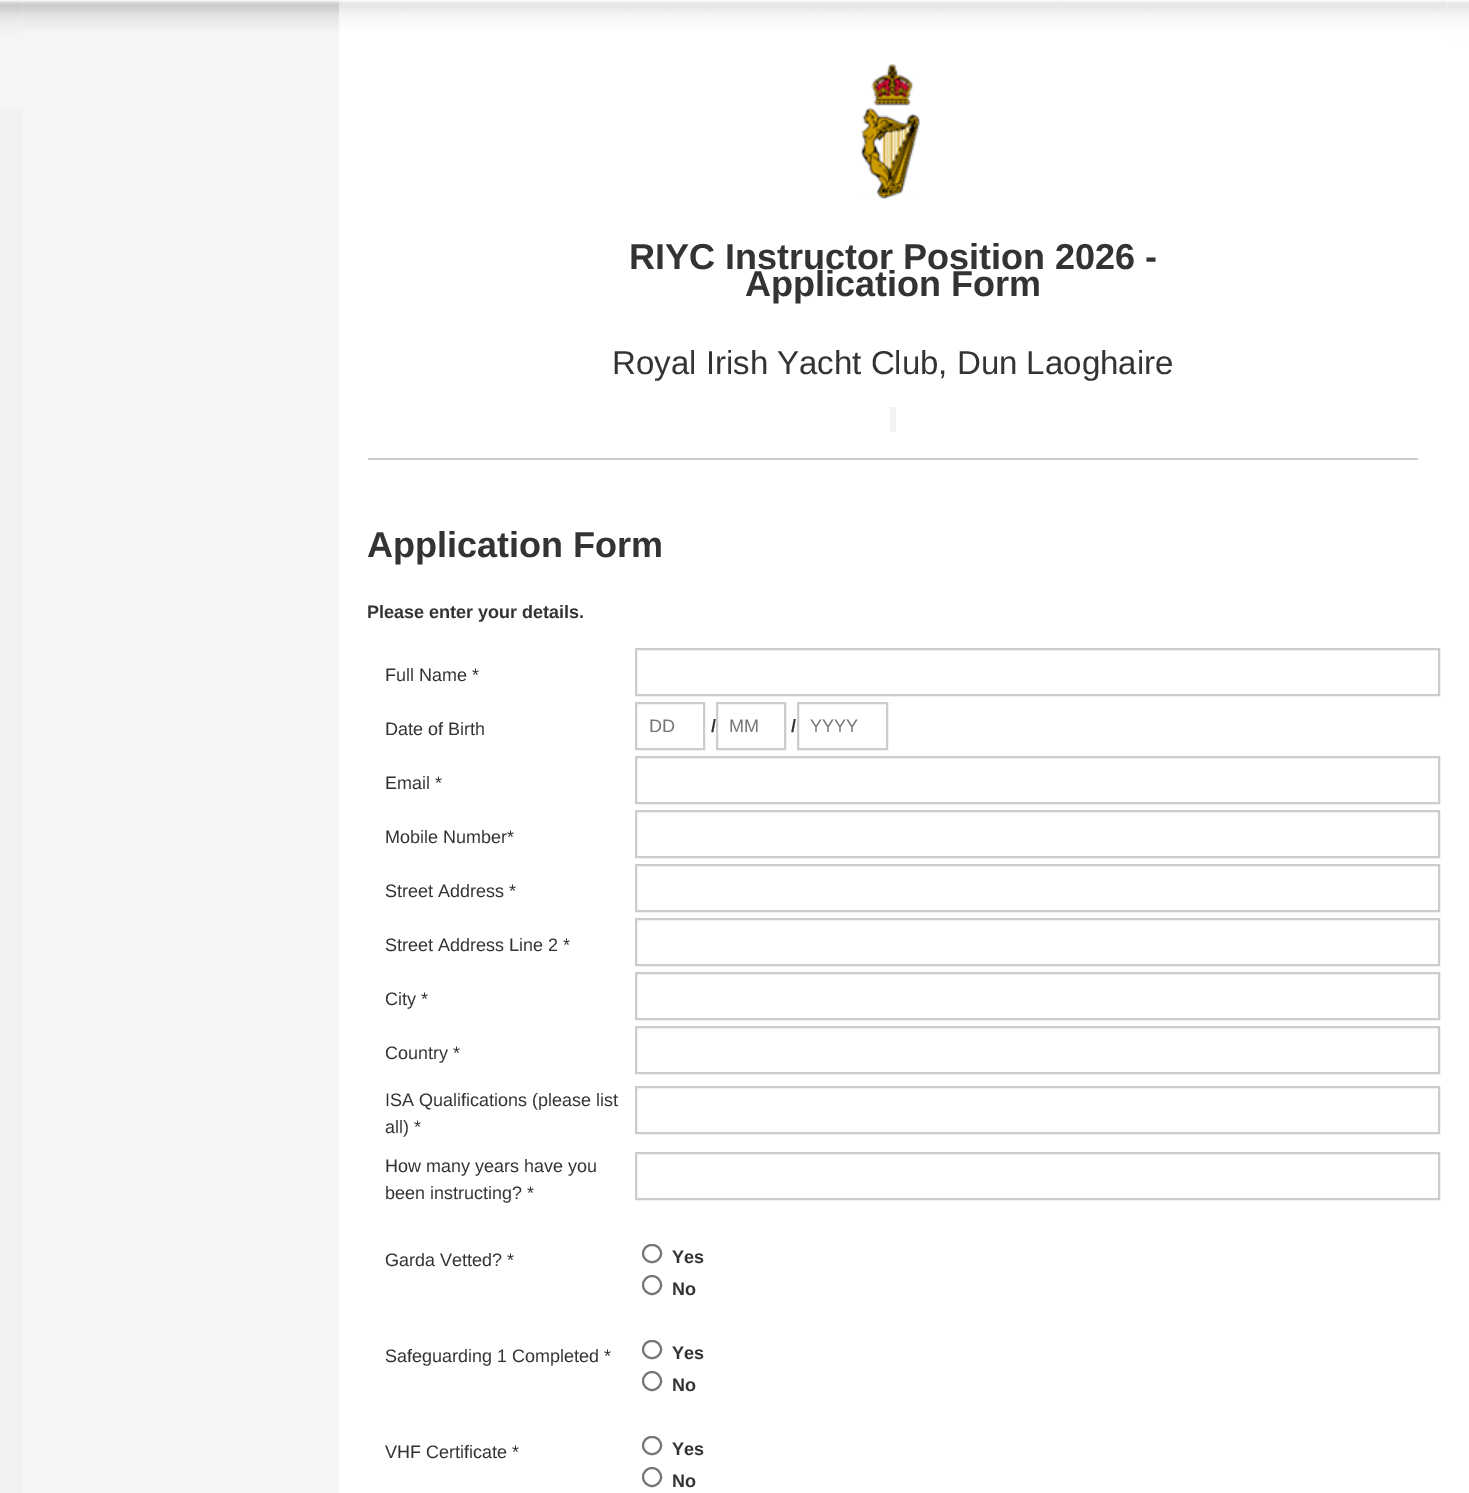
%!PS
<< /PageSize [1469 1493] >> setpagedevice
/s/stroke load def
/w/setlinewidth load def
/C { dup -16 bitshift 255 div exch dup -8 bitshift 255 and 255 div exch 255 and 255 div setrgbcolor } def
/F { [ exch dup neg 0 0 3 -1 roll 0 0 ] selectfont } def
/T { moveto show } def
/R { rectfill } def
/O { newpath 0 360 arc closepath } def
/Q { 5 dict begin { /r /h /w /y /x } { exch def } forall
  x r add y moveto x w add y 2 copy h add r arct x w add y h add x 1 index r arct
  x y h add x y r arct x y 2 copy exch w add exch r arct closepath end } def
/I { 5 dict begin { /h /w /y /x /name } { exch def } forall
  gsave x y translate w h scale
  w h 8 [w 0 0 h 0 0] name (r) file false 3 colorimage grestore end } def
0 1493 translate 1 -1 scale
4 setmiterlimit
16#F2F2F2 C
0 0 1469 1493 R
16#FFFFFF C
1447 108 22 1385 R
(1.rgb) 0 0 1469 108 I
(2.rgb) 22 0 1426 1493 I
(3.rgb) 22 0 1426 31 I
(4.rgb) 861 64 59 136 I
/LiberationSans-Bold 36 F
16#333333 C
(RIYC Instructor Position 2026 -) 629 269 T
(Application Form) 745 296 T
/LiberationSans-Regular 33 F
(Royal Irish Yacht Club, Dun Laoghaire) 612 374 T
16#F2F2F2 C
890 407 6 25 R
16#CCCCCC C
368 458 1050 2 R
/LiberationSans-Bold 36 F
16#333333 C
(Application Form) 367 557 T
/LiberationSans-Bold 18 F
(Please enter your details.) 367 618 T
/LiberationSans-Regular 18 F
(Full Name *) 385 681 T
16#CCCCCC C
2 w
636 649 803 46 rectstroke
16#333333 C
(Date of Birth) 385 735 T
16#CCCCCC C
636 703 68 46 rectstroke
16#757575 C
(DD) 649 732 T
/LiberationSans-Bold 18 F
16#333333 C
(/) 711 732 T
16#CCCCCC C
717 703 68 46 rectstroke
/LiberationSans-Regular 18 F
16#757575 C
(MM) 729 732 T
/LiberationSans-Bold 18 F
16#333333 C
(/) 791 732 T
16#CCCCCC C
798 703 89 46 rectstroke
/LiberationSans-Regular 18 F
16#757575 C
(YYYY) 810 732 T
16#333333 C
(Email *) 385 789 T
16#CCCCCC C
636 757 803 46 rectstroke
16#333333 C
(Mobile Number*) 385 843 T
16#CCCCCC C
636 811 803 46 rectstroke
16#333333 C
(Street Address *) 385 897 T
16#CCCCCC C
636 865 803 46 rectstroke
16#333333 C
(Street Address Line 2 *) 385 951 T
16#CCCCCC C
636 919 803 46 rectstroke
16#333333 C
(City *) 385 1005 T
16#CCCCCC C
636 973 803 46 rectstroke
16#333333 C
(Country *) 385 1059 T
16#CCCCCC C
636 1027 803 46 rectstroke
16#333333 C
(ISA Qualifications \(please list) 385 1106 T
(all\) *) 385 1133 T
16#CCCCCC C
636 1087 803 46 rectstroke
16#333333 C
(How many years have you) 385 1172 T
(been instructing? *) 385 1199 T
16#CCCCCC C
636 1153 803 46 rectstroke
16#333333 C
(Garda Vetted? *) 385 1266 T
16#767676 C
643 1245 18 17 8.5 Q s
/LiberationSans-Bold 18 F
16#333333 C
(Yes) 672 1263 T
16#767676 C
652 1285 9 O s
16#333333 C
(No) 672 1295 T
/LiberationSans-Regular 18 F
(Safeguarding 1 Completed *) 385 1362 T
16#767676 C
643 1341 18 17 8.5 Q s
/LiberationSans-Bold 18 F
16#333333 C
(Yes) 672 1359 T
16#767676 C
652 1381 9 O s
16#333333 C
(No) 672 1391 T
/LiberationSans-Regular 18 F
(VHF Certificate *) 385 1458 T
16#767676 C
643 1437 18 17 8.5 Q s
/LiberationSans-Bold 18 F
16#333333 C
(Yes) 672 1455 T
16#767676 C
652 1477 9 O s
16#333333 C
(No) 672 1487 T
showpage
